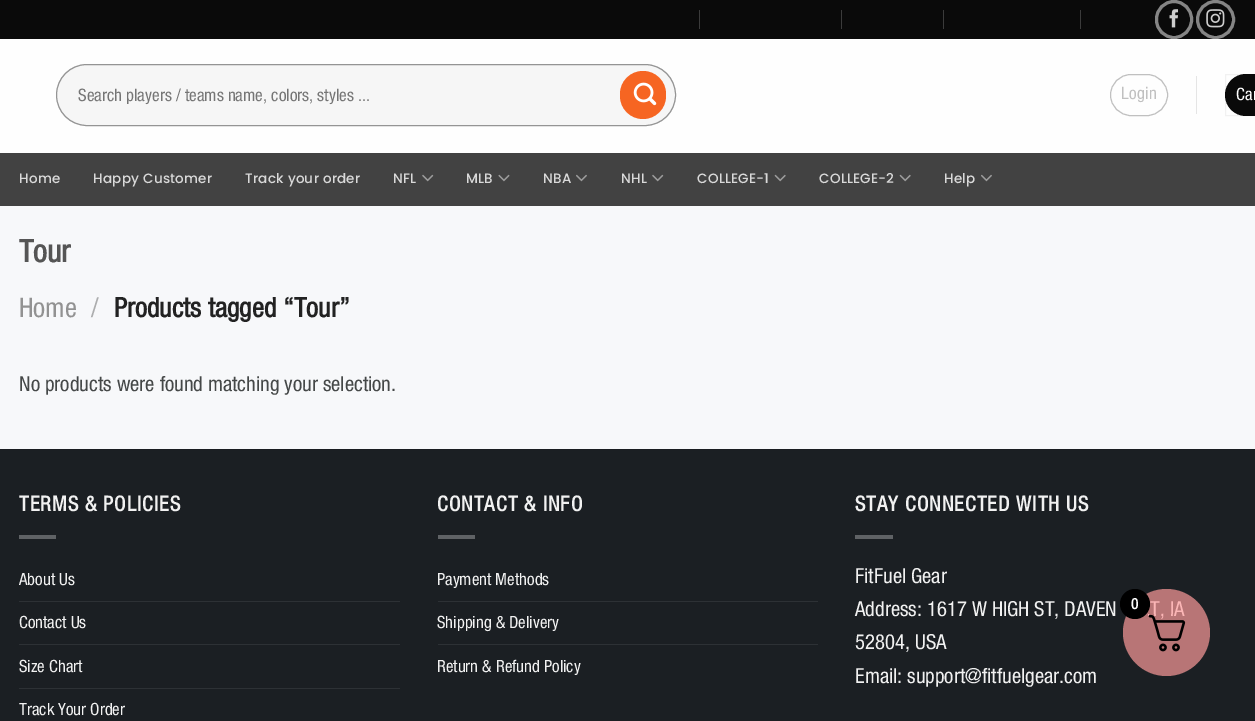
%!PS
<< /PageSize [1255 721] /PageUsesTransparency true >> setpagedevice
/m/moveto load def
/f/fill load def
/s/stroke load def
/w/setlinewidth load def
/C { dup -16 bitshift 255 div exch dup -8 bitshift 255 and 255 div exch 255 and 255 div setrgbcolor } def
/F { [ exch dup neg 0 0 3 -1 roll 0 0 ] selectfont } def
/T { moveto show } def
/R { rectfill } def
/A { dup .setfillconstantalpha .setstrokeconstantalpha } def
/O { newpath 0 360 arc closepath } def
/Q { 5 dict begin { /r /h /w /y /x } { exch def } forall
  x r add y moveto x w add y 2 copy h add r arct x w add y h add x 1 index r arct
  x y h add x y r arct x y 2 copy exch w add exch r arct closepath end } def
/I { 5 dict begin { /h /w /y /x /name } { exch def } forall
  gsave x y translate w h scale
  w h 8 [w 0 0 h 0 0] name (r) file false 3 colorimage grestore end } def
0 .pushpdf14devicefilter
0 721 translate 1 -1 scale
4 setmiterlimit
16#F7F8FA C
0 0 1255 721 R
16#0A0A0A C
0 0 1255 39 R
16#3B3B3B C
699 10 1 19 R
841 10 1 19 R
943 10 1 19 R
1080 10 1 19 R
16#858585 C
3 w
1156.5 1.5 35 36 17.5 Q s
(1.rgb) 1169 9 9 19 I
1215.5 19.5 18 O s
(2.rgb) 1206 9 19 19 I
16#FEFEFE C
0 39 1255 114 R
16#F6F6F6 C
56 64 620 62 31 Q f
0.4 A
16#000000 C
1 w
56.5 64.5 619 61 30.5 Q s
/HelveticaNeue-Medium 17.1 F
1 A
16#757575 C
(Search players / teams name, colors, styles ...) 78 101 T
16#F66522 C
620 71 46 48 23 Q f
(3.rgb) 633 82 24 24 I
16#C0C0C0 C
1110.5 74.5 57 41 20.5 Q s
/HelveticaNeue-Medium 17 F
1121 99 m .5 0 (Login) ashow
16#E5E5E5 C
1196 76 1 38 R
16#0A0A0A C
1225 74 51 42 21 Q f
0.05 A
16#000000 C
1225.5 74.5 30 41 rectstroke
1 A
16#FFFFFF C
1236 100 m .5 0 (Car) ashow
16#424242 C
0 153 1255 53 R
/Poppins-Medium 13.5 F
16#D9D9D9 C
19 183 m .25 0 (Home) ashow
93 183 m .25 0 (Happy Customer) ashow
245 183 m .25 0 (Track your order) ashow
393 183 m .25 0 (NFL) ashow
(4.rgb) 422 174 12 8 I
466 183 m .25 0 (MLB) ashow
(5.rgb) 498 174 12 8 I
543 183 m .25 0 (NBA) ashow
(6.rgb) 576 174 11 8 I
621 183 m .25 0 (NHL) ashow
(4.rgb) 652 174 12 8 I
697 183 m .25 0 (COLLEGE-1) ashow
(7.rgb) 774 174 12 8 I
819 183 m .25 0 (COLLEGE-2) ashow
(7.rgb) 899 174 12 8 I
944 183 m .25 0 (Help) ashow
(6.rgb) 981 174 11 8 I
/HelveticaNeue-Bold 31 F
16#555555 C
(Tour) 19 262 T
/HelveticaNeue-Medium 27 F
16#929292 C
(Home) 19 317 T
16#ACADAE C
(/) 91 317 T
/HelveticaNeue-Bold 27 F
16#222222 C
(Products tagged “Tour”) 114 317 T
/HelveticaNeue-Medium 20.75 F
16#454848 C
(No products were found matching your selection.) 19 391 T
16#1B1F23 C
0 450 1255 271 R
16#1A1D21 C
0 449 1255 1 R
/HelveticaNeue-Bold 20.75 F
16#F1F1F1 C
19 511 m 1 0 (TERMS & POLICIES) ashow
16#5F6265 C
19 535 37 4 R
/HelveticaNeue-Medium 16.9 F
16#F1F1F1 C
(About Us) 19 585 T
16#2D3135 C
19 601 381 1 R
16#F1F1F1 C
(Contact Us) 19 628 T
16#2D3135 C
19 644 381 1 R
16#F1F1F1 C
(Size Chart) 19 672 T
16#2D3135 C
19 688 381 1 R
16#F1F1F1 C
(Track Your Order) 19 715 T
/HelveticaNeue-Bold 20.75 F
437 511 m 1 0 (CONTACT & INFO) ashow
16#5F6265 C
438 535 37 4 R
/HelveticaNeue-Medium 16.9 F
16#F1F1F1 C
(Payment Methods) 437 585 T
16#2D3135 C
438 601 380 1 R
16#F1F1F1 C
(Shipping & Delivery) 437 628 T
16#2D3135 C
438 644 380 1 R
16#F1F1F1 C
(Return & Refund Policy) 437 672 T
/HelveticaNeue-Bold 20.75 F
855 511 m 1 0 (STAY CONNECTED WITH US) ashow
16#5F6265 C
855 535 38 4 R
/HelveticaNeue-Medium 20.75 F
16#F1F1F1 C
(FitFuel Gear) 855 583 T
(Address: 1617 W HIGH ST, DAVEN) 855 616 T
(T, IA) 1150 616 T
(52804, USA) 855 649 T
(Email: support@fitfuelgear.com) 855 683 T
0.69 A
16#FF9B9B C
1166.5 632.5 43.5 O f
1 A
(8.rgb) 1148 614 38 38 I
16#000000 C
1135 604 15 O f
/HelveticaNeue-Bold 15 F
16#FFFFFF C
(0) 1131 609 T
.poppdf14devicefilter showpage
